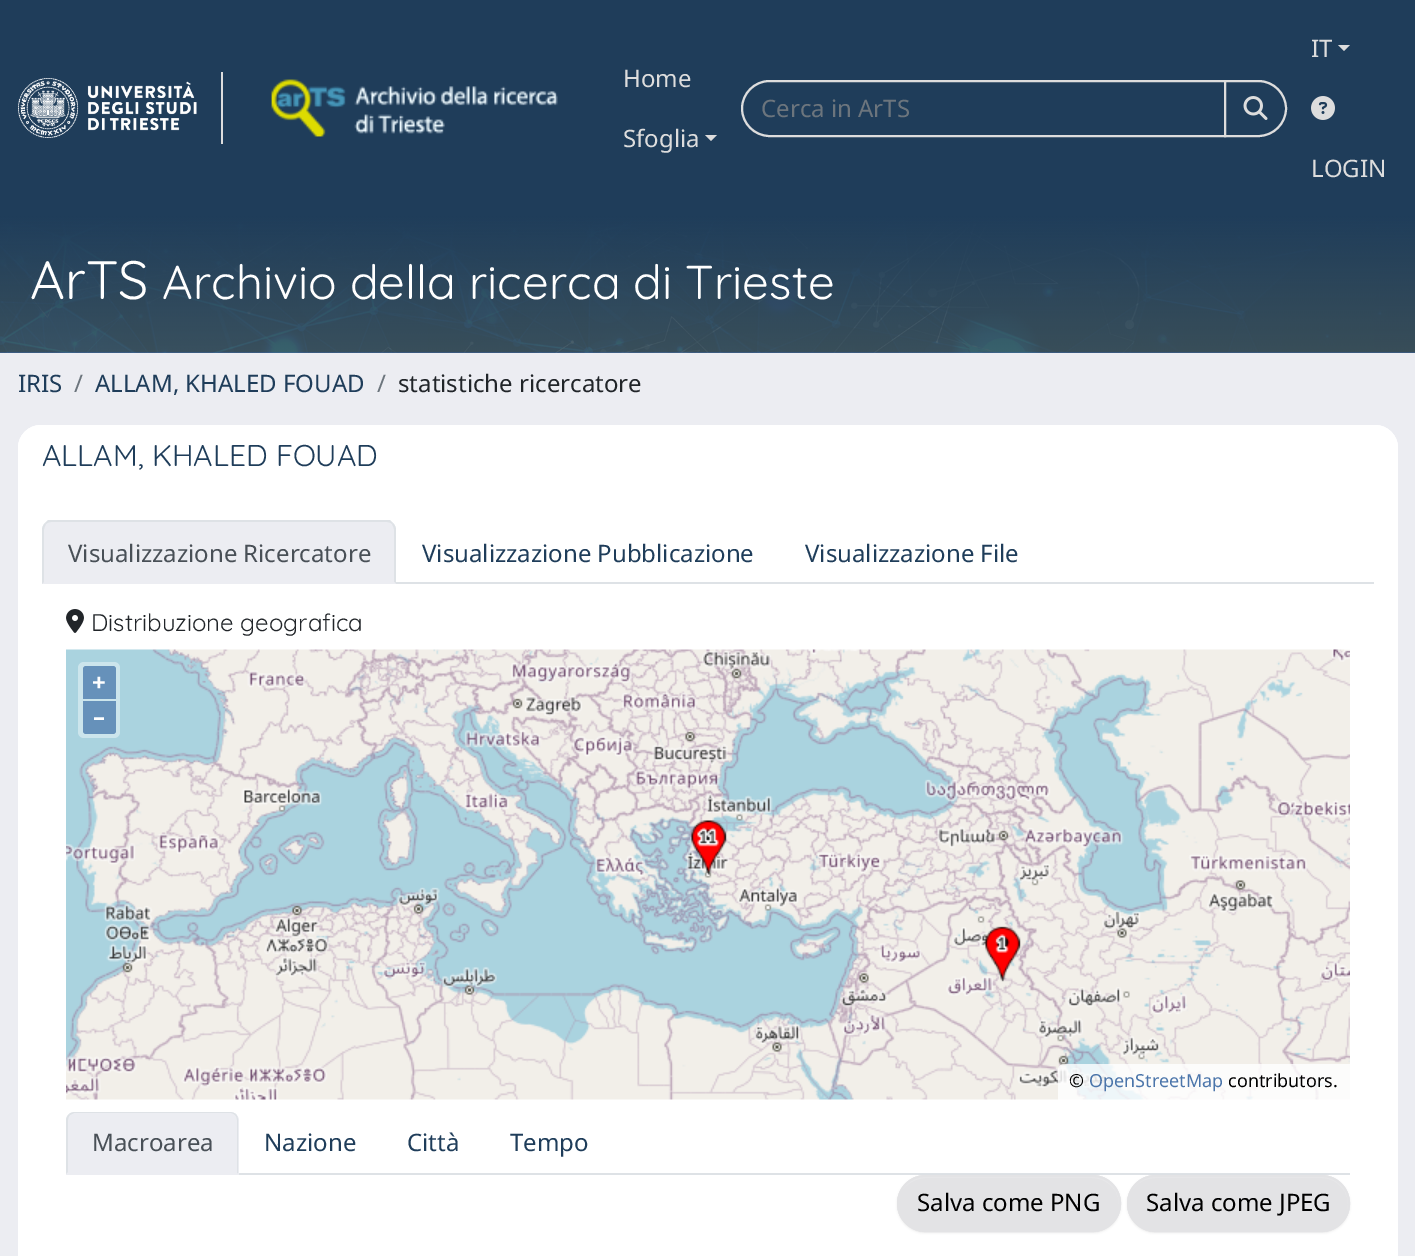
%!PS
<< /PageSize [1415 1256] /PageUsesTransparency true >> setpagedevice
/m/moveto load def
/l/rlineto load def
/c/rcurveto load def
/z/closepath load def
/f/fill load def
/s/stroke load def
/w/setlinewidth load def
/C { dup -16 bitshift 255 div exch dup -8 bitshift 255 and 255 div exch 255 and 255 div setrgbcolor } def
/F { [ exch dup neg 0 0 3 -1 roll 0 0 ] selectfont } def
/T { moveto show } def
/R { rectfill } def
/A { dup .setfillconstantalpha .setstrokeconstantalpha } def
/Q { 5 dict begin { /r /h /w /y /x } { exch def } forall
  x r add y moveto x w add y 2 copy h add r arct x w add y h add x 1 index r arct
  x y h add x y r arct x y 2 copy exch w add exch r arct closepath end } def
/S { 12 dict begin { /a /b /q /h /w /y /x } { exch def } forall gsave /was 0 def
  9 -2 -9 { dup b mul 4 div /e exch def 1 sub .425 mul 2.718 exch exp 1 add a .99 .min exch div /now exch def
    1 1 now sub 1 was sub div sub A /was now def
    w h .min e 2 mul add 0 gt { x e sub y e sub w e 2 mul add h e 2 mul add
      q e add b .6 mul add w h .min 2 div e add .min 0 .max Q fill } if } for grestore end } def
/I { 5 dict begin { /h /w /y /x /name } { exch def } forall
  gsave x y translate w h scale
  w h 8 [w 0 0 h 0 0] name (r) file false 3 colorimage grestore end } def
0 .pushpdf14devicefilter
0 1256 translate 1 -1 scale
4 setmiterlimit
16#ECEDF2 C
0 0 1415 1256 R
16#1F3D5A C
0 0 1415 216 R
16#DDDDDD C
221 72 2 72 R
(1.rgb) 18 78 179 60 I
(2.rgb) 271 79 287 58 I
/NotoSans-Regular 24 F
(Home) 623 87 T
(Sfoglia) 623 147 T
705 135 m 12 0 l -6 6 l z f
2 w
769.5 81 m 455.5 0 l 0 55 l -455.5 0 l -15 0 -27.5 -12.5 -27.5 -27.5 c 0 -15 12.5 -27.5 27.5 -27.5 c z s
16#6C757D C
(Cerca in ArTS) 761 117 T
16#000000 C
1224 81 63 57 28.5 1 .07 S
16#1F3D5A C
1224 80 m 34.5 0 l 15.5 0 28.5 13 28.5 28.5 c 0 15.5 -13 28.5 -28.5 28.5 c -34.5 0 l z f
16#415A73 C
1226 82 m 32 0 l 15 0 27 12 28 27 c 0 -1 l 0 -15 -12 -27 -27 -27 c -33 0 l z f
16#DDDDDD C
1225 81 m 33.5 0 l 15 0 27.5 12.5 27.5 27.5 c 0 15 -12.5 27.5 -27.5 27.5 c -33.5 0 l z s
(3.rgb) 1243 96 25 24 I
(IT) 1311 57 T
1338 45 m 12 0 l -6 6 l z f
(4.rgb) 1311 96 24 24 I
(LOGIN) 1311 177 T
16#487994 C
0 352 1415 1 R
(5.rgb) 0 216 1415 137 I
/Quicksand-Light 54 F
16#FFFFFF C
(ArTS) 30 299 T
/Quicksand-Light 47.5 F
(Archivio della ricerca di Trieste) 162 299 T
/NotoSans-Regular 24 F
16#1F3D5A C
(IRIS) 18 392 T
16#6C757D C
(/) 74 392 T
16#1F3D5A C
(ALLAM, KHALED FOUAD) 95 392 T
16#6C757D C
(/) 377 392 T
16#212529 C
(statistiche ricercatore) 398 392 T
16#FFFFFF C
18 425 1380 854 23 Q f
41 425 m 1334 0 l 12.5 0 23 10.5 23 23 c 0 49 l -1380 0 l 0 -49 l 0 -12.5 10.5 -23 23 -23 c z f
/Quicksand-Light 30 F
16#1F3D5A C
(ALLAM, KHALED FOUAD) 42 466 T
16#DEE2E6 C
396 582 978 2 R
16#ECEDF2 C
51 521 m 336 0 l 5 0 9 4 9 9 c 0 54 l -354 0 l 0 -54 l 0 -5 4 -9 9 -9 c z f
16#DEE2E6 C
51 522 m -2 0 -4 1 -5 2 c -1 -1 l 3 -3 l 342 0 l 3 3 l -1 1 l -1 -1 -3 -2 -5 -2 c z f
396 584 m 0 -54 l 0 -2 -1 -5 -3 -7 c -1 1 l 1 2 2 4 2 6 c 0 52 l z f
16#ECEDF2 C
396 584 m -354 0 l 2 -2 l 350 0 l z f
16#DEE2E6 C
42 584 m 2 -2 l 0 -52 l 0 -2 1 -4 2 -6 c -1 -1 l -2 2 -3 5 -3 7 c z f
/NotoSans-Regular 24 F
16#495057 C
(Visualizzazione Ricercatore) 68 562 T
16#1F3D5A C
(Visualizzazione Pubblicazione) 422 562 T
(Visualizzazione File) 805 562 T
(6.rgb) 66 609 18 24 I
/Quicksand-Light 24 F
16#212529 C
(Distribuzione geografica) 91 631 T
(7.rgb) 66 649 1284 451 I
16#CCE5EC C
78 662 42 76 6 Q f
16#6691BA C
86 666 m 27 0 l 1.5 0 3 1.5 3 3 c 0 30 l -33 0 l 0 -30 l 0 -1.5 1.5 -3 3 -3 c z f
/NotoSans-Bold 24 F
16#FFFFFF C
(+) 92 691 T
16#6691BA C
83 701 m 33 0 l 0 30 l 0 1.5 -1.5 3 -3 3 c -27 0 l -1.5 0 -3 -1.5 -3 -3 c z f
16#FFFFFF C
(–) 93 725 T
0.8 A
1064 1064 m 286 0 l 0 36 l -292 0 l 0 -30 l 0 -3.5 2.5 -6 6 -6 c z f
/NotoSans-Regular 18 F
1 A
16#000000 C
(©) 1069 1087 T
16#4B75AA C
(OpenStreetMap) 1089 1087 T
16#000000 C
(contributors.) 1228 1087 T
16#DEE2E6 C
239 1173 1111 2 R
16#ECEDF2 C
75 1112 m 155 0 l 5 0 9 4 9 9 c 0 54 l -173 0 l 0 -54 l 0 -5 4 -9 9 -9 c z f
16#DEE2E6 C
75 1112 m -2 0 -5 1 -6 2 c 1 1 l 4 -2 l 157 0 l 1 0 3 1 4 2 c 1 -1 l -2 -1 -4 -2 -6 -2 c z f
238 1174 m 0 -54 l 0 -2 -1 -4 -2 -6 c -1 1 l 1 1 2 3 2 5 c 0 53 l z f
16#ECEDF2 C
238 1174 m -1 -1 l -169 0 l 0 -1 l -2 2 l z f
16#DEE2E6 C
66 1120 m 0 54 l 2 -2 l 0 -52 l 0 -2 1 -4 2 -5 c -1 -1 l -2 2 -3 4 -3 6 c z f
/NotoSans-Regular 24 F
16#495057 C
(Macroarea) 92 1151 T
16#1F3D5A C
(Nazione) 264 1151 T
(Città) 407 1151 T
(Tempo) 510 1151 T
16#000000 C
897 1176 224 57 28.5 1 .07 S
16#E3E3E5 C
897 1175 224 57 28.5 Q f
16#E7E7E9 C
926 1178 m 166 0 l 15 0 27 12 27 26 c 0 -1 l 0 -15 -12 -27 -27 -27 c -166 0 l -11 0 -20 7 -25 16 c 5 -8 15 -14 25 -14 c z f
16#E3E3E5 C
898 1176 222 55 27.5 Q s
16#000000 C
(Salva come PNG) 917 1211 T
1127 1176 223 57 28.5 1 .07 S
16#E3E3E5 C
1127 1175 223 57 28.5 Q f
16#E7E7E9 C
1155 1178 m 167 0 l 14 0 26 12 26 26 c 0 5 -2 11 -4 15 c 3 -4 5 -10 5 -16 c 0 -15 -12 -27 -27 -27 c -167 0 l -15 0 -27 12 -27 27 c 0 1 l 0 -14 12 -26 27 -26 c z f
16#E3E3E5 C
1128 1176 221 55 27.5 Q s
16#000000 C
(Salva come JPEG) 1146 1211 T
.poppdf14devicefilter showpage
